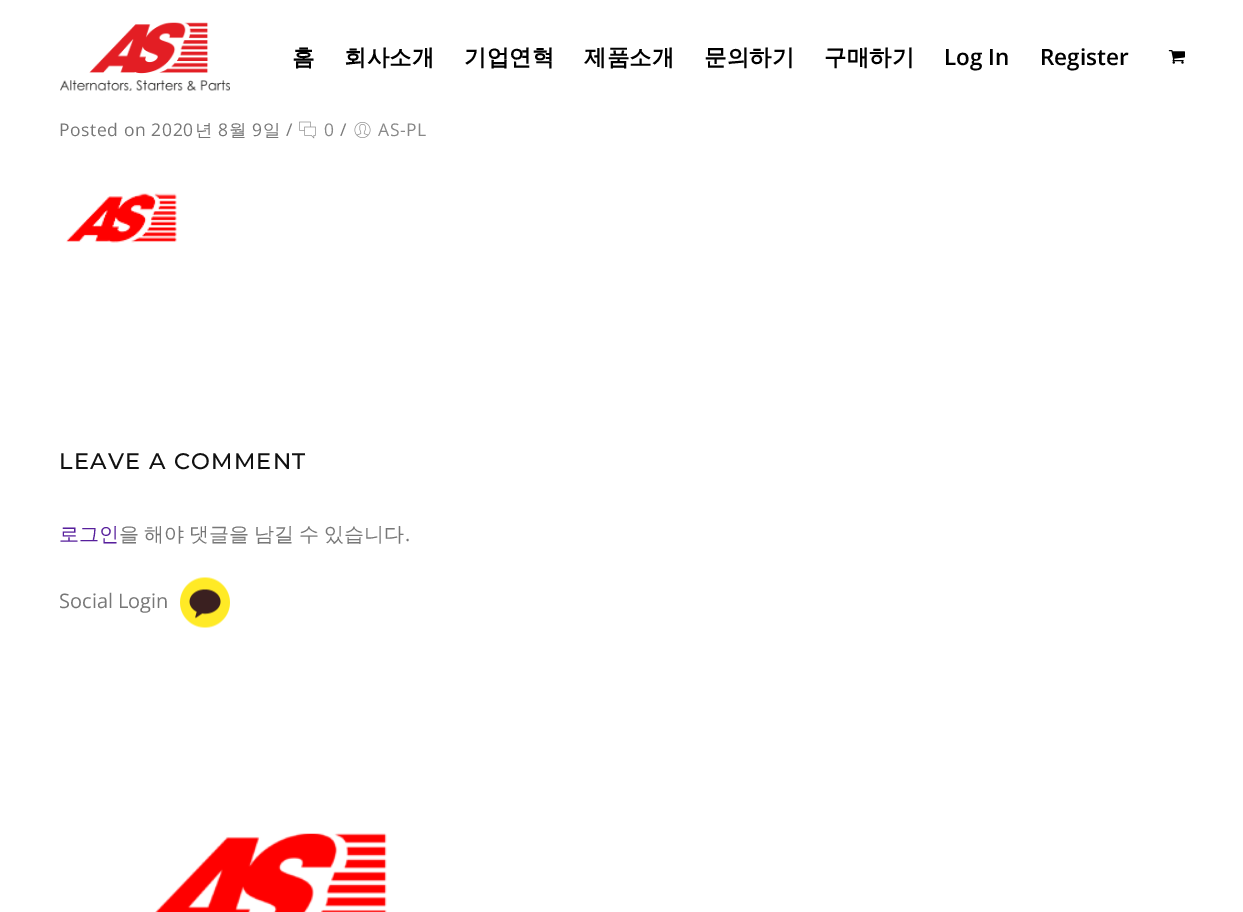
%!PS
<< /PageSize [1243 912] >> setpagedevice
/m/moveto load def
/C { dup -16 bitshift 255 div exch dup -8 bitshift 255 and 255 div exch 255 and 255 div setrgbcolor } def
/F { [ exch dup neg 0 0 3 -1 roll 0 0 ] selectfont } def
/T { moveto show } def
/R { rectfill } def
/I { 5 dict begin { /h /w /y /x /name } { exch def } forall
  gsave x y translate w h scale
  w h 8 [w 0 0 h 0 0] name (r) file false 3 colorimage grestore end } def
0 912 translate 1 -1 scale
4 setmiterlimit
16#FFFFFF C
0 0 1243 912 R
(1.rgb) 60 22 170 69 I
/WenQuanYiZenHei-Bold 22.5 F
16#000000 C
(홈) 292 65 T
(회사소개) 344 65 T
(기업연혁) 464 65 T
(제품소개) 584 65 T
(문의하기) 704 65 T
(구매하기) 824 65 T
/OpenSans-SemiBold 22.5 F
(Log In) 944 65 T
(Register) 1040 65 T
(2.rgb) 1168 50 17 14 I
/OpenSans-Regular 17.5 F
16#777777 C
59 136 m .6 0 (Posted on 2020) ashow
/WenQuanYiZenHei-Medium 17.5 F
195 136 m .6 0 (년) ashow
/OpenSans-Regular 17.5 F
218 136 m .6 0 (8) ashow
/WenQuanYiZenHei-Medium 17.5 F
229 136 m .6 0 (월) ashow
/OpenSans-Regular 17.5 F
252 136 m .6 0 (9) ashow
/WenQuanYiZenHei-Medium 17.5 F
263 136 m .6 0 (일) ashow
/OpenSans-Regular 17.5 F
286 136 m .6 0 (/) ashow
(3.rgb) 299 121 17 18 I
16#888888 C
324 136 m .6 0 (0) ashow
16#777777 C
340 136 m .6 0 (/) ashow
(4.rgb) 354 122 17 16 I
16#888888 C
378 136 m .6 0 (AS-PL) ashow
(5.rgb) 66 193 111 50 I
/Montserrat-Medium 22.5 F
16#111111 C
59 469 m 1.25 0 (LEAVE A COMMENT) ashow
/WenQuanYiZenHei-Medium 20 F
16#571F9C C
(로그인) 59 541 T
16#777777 C
119 541 m -1 0 32 (을 해야 댓글을 남길 수 있습니다) widthshow
/OpenSans-Regular 20 F
(.) 405 541 T
(Social Login) 59 608 T
(6.rgb) 180 577 50 51 I
(7.rgb) 155 833 232 79 I
showpage
